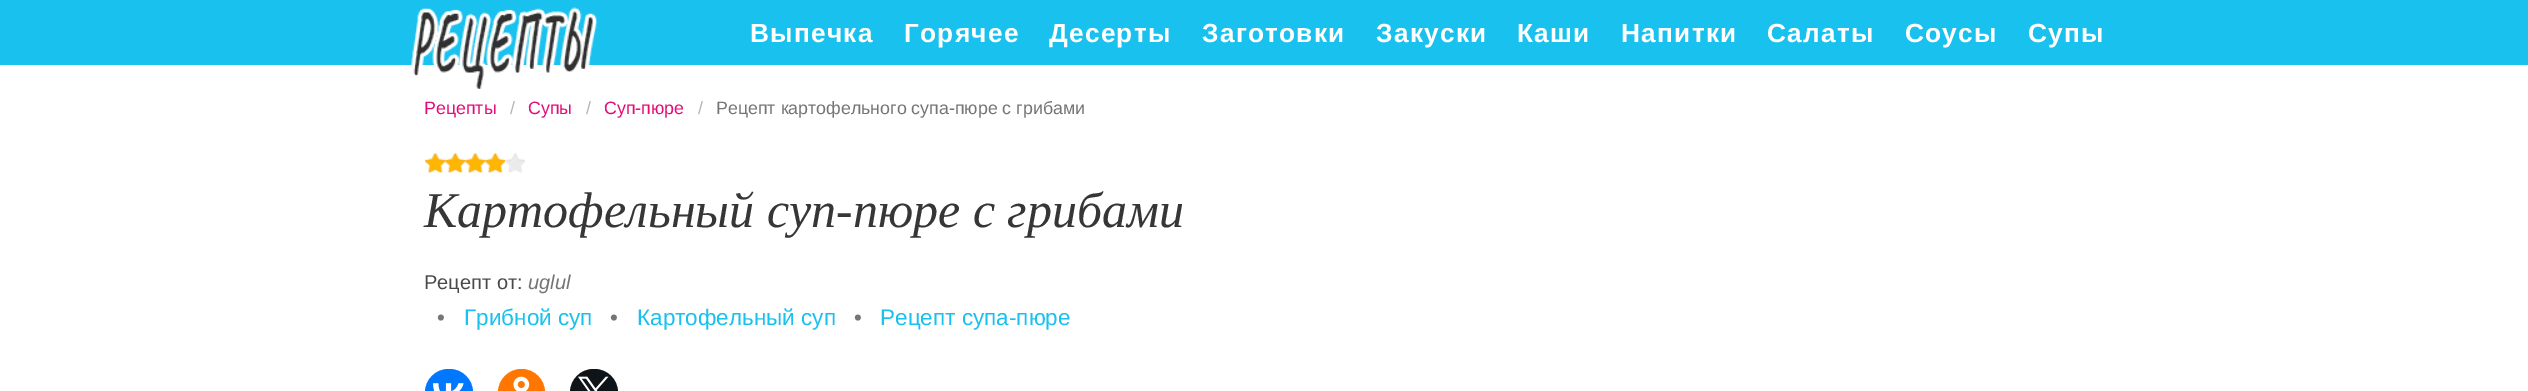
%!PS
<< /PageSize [2528 391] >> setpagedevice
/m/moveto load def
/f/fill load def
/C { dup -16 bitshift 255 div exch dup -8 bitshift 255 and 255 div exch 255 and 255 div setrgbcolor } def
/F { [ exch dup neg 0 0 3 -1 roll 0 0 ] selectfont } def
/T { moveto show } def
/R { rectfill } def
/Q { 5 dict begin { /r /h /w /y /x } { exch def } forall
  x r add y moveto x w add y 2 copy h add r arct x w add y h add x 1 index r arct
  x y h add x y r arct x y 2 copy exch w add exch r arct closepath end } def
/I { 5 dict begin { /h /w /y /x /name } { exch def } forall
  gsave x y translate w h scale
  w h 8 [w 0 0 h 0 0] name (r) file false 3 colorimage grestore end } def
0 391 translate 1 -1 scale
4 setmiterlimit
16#FFFFFF C
0 0 2528 391 R
16#18C1EE C
0 0 2528 65 R
(1.rgb) 411 7 187 82 I
/LiberationSans-Bold 26.25 F
16#FFFFFF C
750 42 m 1.25 0 (Выпечка) ashow
904 42 m 1.25 0 (Горячее) ashow
1049 42 m 1.25 0 (Десерты) ashow
1202 42 m 1.25 0 (Заготовки) ashow
1376 42 m 1.25 0 (Закуски) ashow
1517 42 m 1.25 0 (Каши) ashow
1621 42 m 1.25 0 (Напитки) ashow
1767 42 m 1.25 0 (Салаты) ashow
1905 42 m 1.25 0 (Соусы) ashow
2028 42 m 1.25 0 (Супы) ashow
/LiberationSans-Regular 17.8 F
16#E40C78 C
(Рецепты) 424 114 T
16#B5B5B5 C
(/) 510 114 T
16#E40C78 C
(Супы) 528 114 T
16#B5B5B5 C
(/) 586 114 T
16#E40C78 C
(Суп-пюре) 604 114 T
16#B5B5B5 C
(/) 698 114 T
16#757575 C
(Рецепт картофельного супа-пюре с грибами) 716 114 T
(2.rgb) 425 152 100 21 I
(3.rgb) 425 153 80 20 I
/LiberationSerif-Italic 50 F
16#363636 C
(Картофельный суп-пюре с грибами) 424 227 T
/LiberationSans-Regular 20 F
16#4A4A4A C
(Рецепт от:) 424 289 T
/LiberationSans-Italic 20 F
16#757575 C
(uglul) 528 289 T
/LiberationSans-Regular 22.5 F
(•) 437 325 T
16#18C1EE C
(Грибной суп) 464 325 T
16#757575 C
(•) 610 325 T
16#18C1EE C
(Картофельный суп) 637 325 T
16#757575 C
(•) 854 325 T
16#18C1EE C
(Рецепт супа-пюре) 880 325 T
16#0077FF C
425 369 48 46 23.5 Q f
(4.rgb) 433 383 31 8 I
16#FF7700 C
498 369 47 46 23.5 Q f
(5.rgb) 513 376 17 15 I
16#0F1419 C
570 369 48 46 23.5 Q f
(6.rgb) 578 376 31 15 I
showpage
